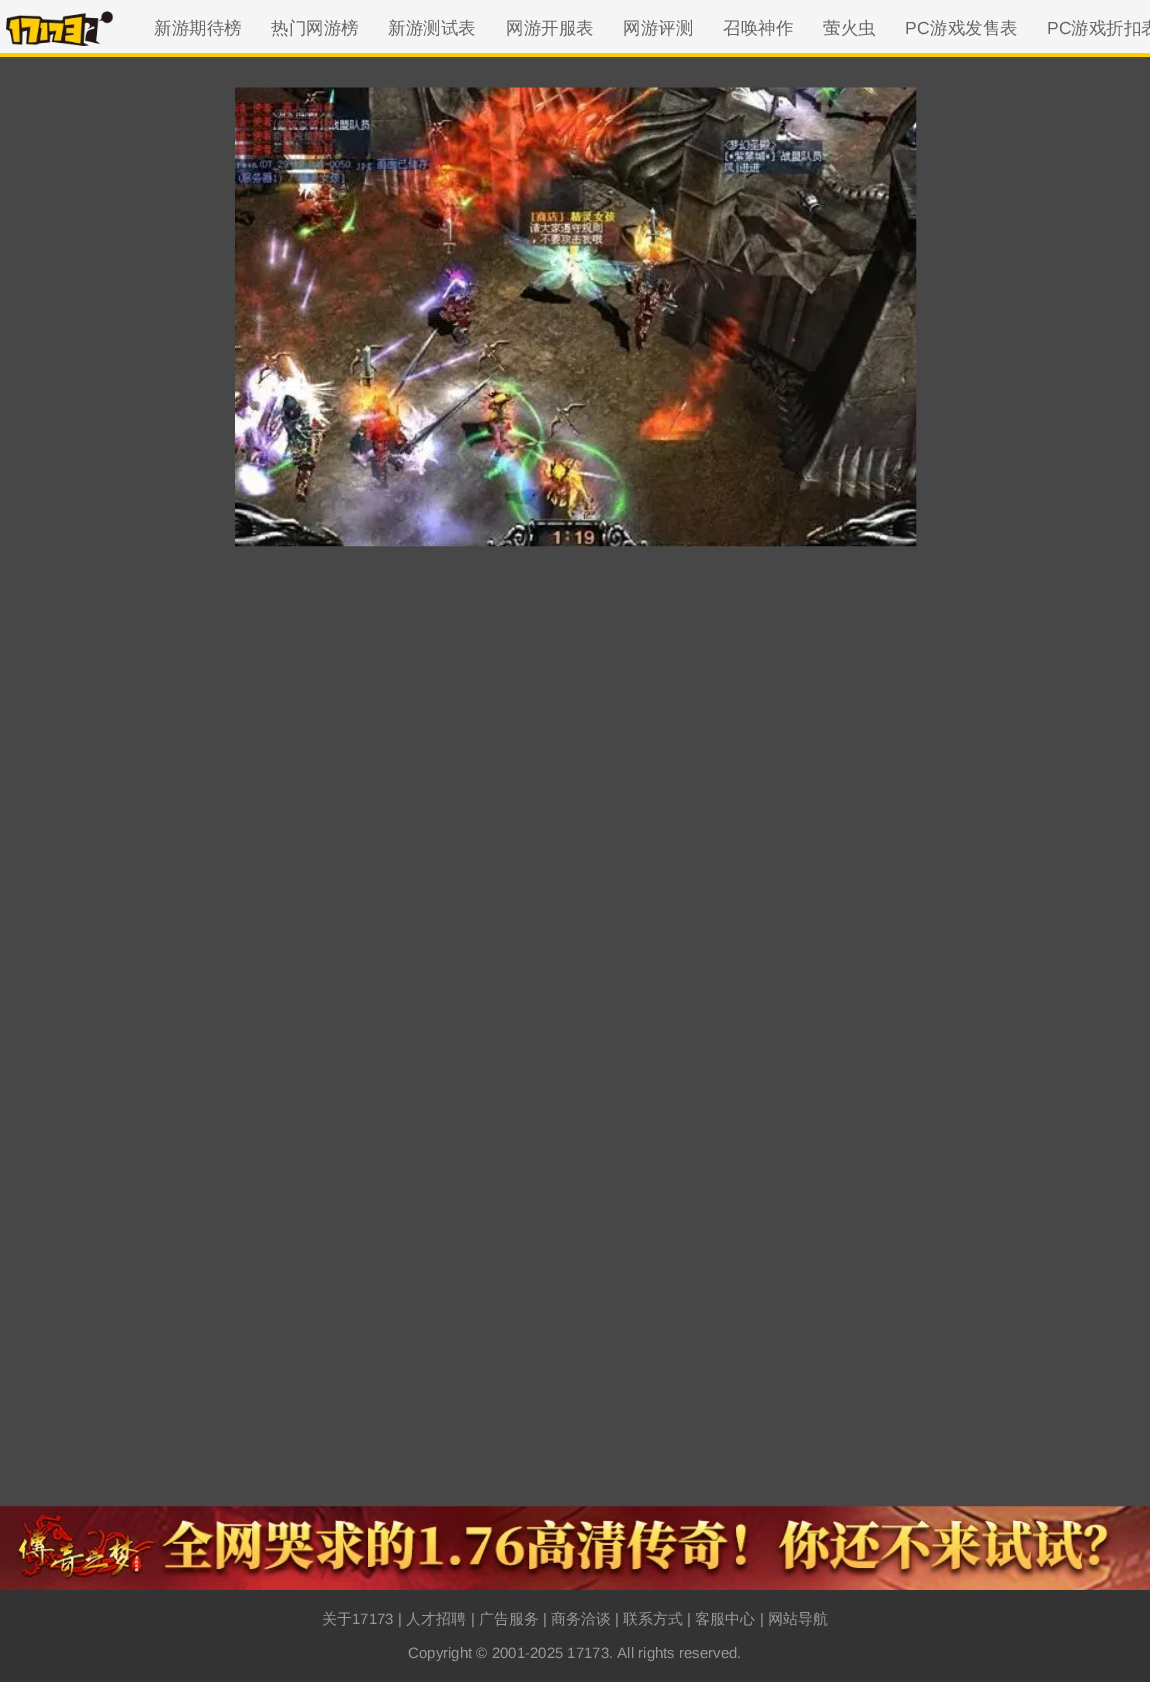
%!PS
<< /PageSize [1150 1682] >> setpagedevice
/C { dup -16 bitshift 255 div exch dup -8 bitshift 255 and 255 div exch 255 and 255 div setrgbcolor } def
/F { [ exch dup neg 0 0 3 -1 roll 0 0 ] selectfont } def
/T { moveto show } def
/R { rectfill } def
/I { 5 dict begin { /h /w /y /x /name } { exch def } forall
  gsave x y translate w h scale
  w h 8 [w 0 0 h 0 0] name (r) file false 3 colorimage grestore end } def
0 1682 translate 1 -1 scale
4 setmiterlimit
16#474747 C
0 0 1150 1682 R
16#F5F5F5 C
0 0 1150 53 R
16#FFCD00 C
0 53 1150 4 R
(1.rgb) 6 11 108 35 I
/WenQuanYiZenHei-Medium 17.5 F
16#666666 C
(新游期待榜) 154 34 T
(热门网游榜) 271 34 T
(新游测试表) 388 34 T
(网游开服表) 506 34 T
(网游评测) 623 34 T
(召唤神作) 723 34 T
(萤火虫) 823 34 T
/LiberationSans-Regular 17.5 F
(PC) 905 34 T
/WenQuanYiZenHei-Medium 17.5 F
(游戏发售表) 930 34 T
/LiberationSans-Regular 17.5 F
(PC) 1047 34 T
/WenQuanYiZenHei-Medium 17.5 F
(游戏折扣表) 1071 34 T
(2.rgb) 235 87 682 460 I
(3.rgb) 0 1506 1150 84 I
16#333333 C
0 1590 1150 92 R
/WenQuanYiZenHei-Medium 15 F
16#999999 C
(关于) 322 1624 T
/LiberationSans-Regular 15 F
(17173 |) 352 1624 T
/WenQuanYiZenHei-Medium 15 F
(人才招聘) 406 1624 T
/LiberationSans-Regular 15 F
(|) 471 1624 T
/WenQuanYiZenHei-Medium 15 F
(广告服务) 479 1624 T
/LiberationSans-Regular 15 F
(|) 543 1624 T
/WenQuanYiZenHei-Medium 15 F
(商务洽谈) 551 1624 T
/LiberationSans-Regular 15 F
(|) 615 1624 T
/WenQuanYiZenHei-Medium 15 F
(联系方式) 623 1624 T
/LiberationSans-Regular 15 F
(|) 687 1624 T
/WenQuanYiZenHei-Medium 15 F
(客服中心) 695 1624 T
/LiberationSans-Regular 15 F
(|) 760 1624 T
/WenQuanYiZenHei-Medium 15 F
(网站导航) 768 1624 T
/LiberationSans-Regular 15 F
(Copyright © 2001-2025 17173. All rights reserved.) 408 1658 T
showpage
